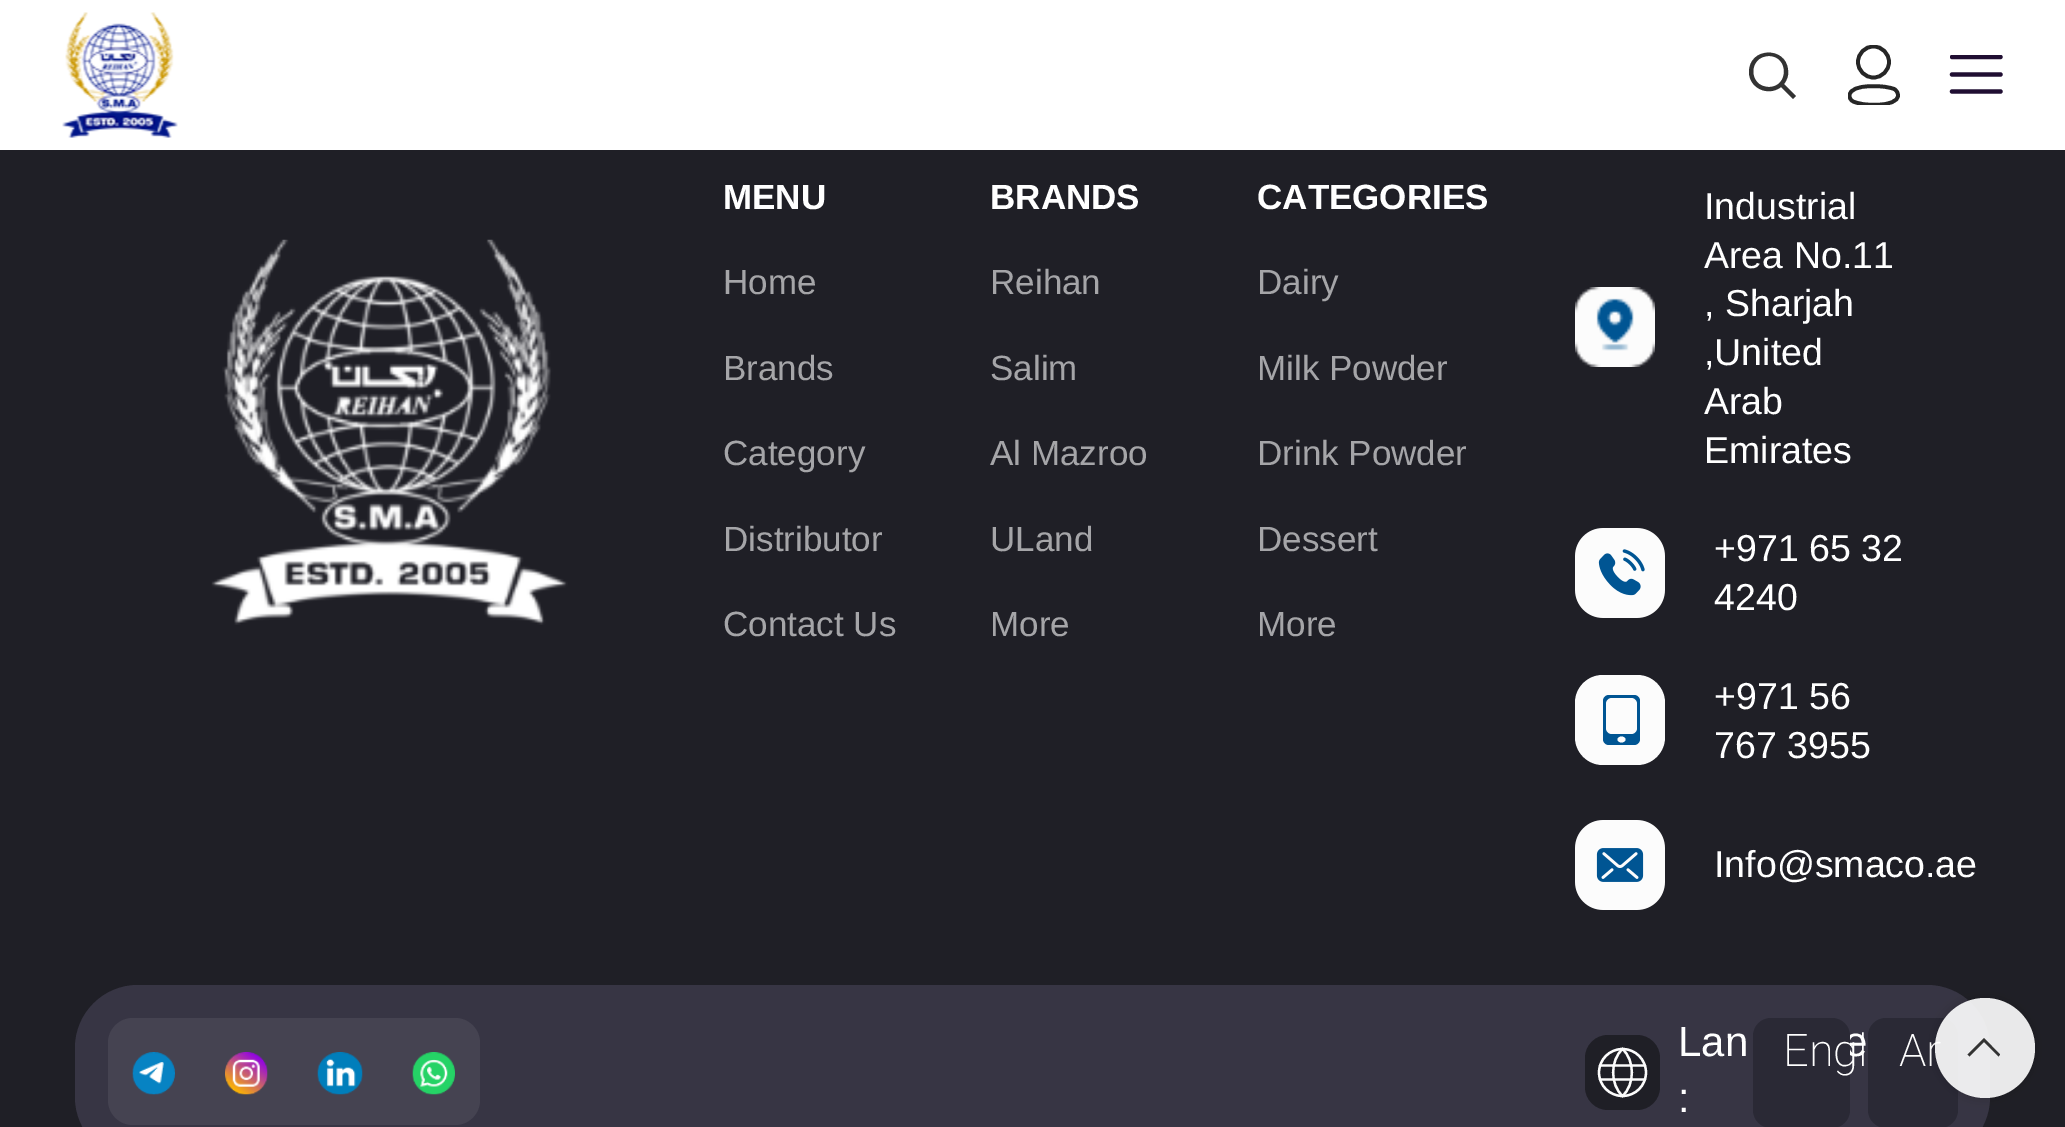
%!PS
<< /PageSize [2065 1127] /PageUsesTransparency true >> setpagedevice
/m/moveto load def
/l/rlineto load def
/c/rcurveto load def
/z/closepath load def
/f/fill load def
/s/stroke load def
/q/gsave load def
/Q_/grestore load def
/w/setlinewidth load def
/C { dup -16 bitshift 255 div exch dup -8 bitshift 255 and 255 div exch 255 and 255 div setrgbcolor } def
/F { [ exch dup neg 0 0 3 -1 roll 0 0 ] selectfont } def
/T { moveto show } def
/R { rectfill } def
/A { dup .setfillconstantalpha .setstrokeconstantalpha } def
/O { newpath 0 360 arc closepath } def
/Q { 5 dict begin { /r /h /w /y /x } { exch def } forall
  x r add y moveto x w add y 2 copy h add r arct x w add y h add x 1 index r arct
  x y h add x y r arct x y 2 copy exch w add exch r arct closepath end } def
/S { 12 dict begin { /a /b /q /h /w /y /x } { exch def } forall gsave /was 0 def
  9 -2 -9 { dup b mul 4 div /e exch def 1 sub .425 mul 2.718 exch exp 1 add a .99 .min exch div /now exch def
    1 1 now sub 1 was sub div sub A /was now def
    w h .min e 2 mul add 0 gt { x e sub y e sub w e 2 mul add h e 2 mul add
      q e add b .6 mul add w h .min 2 div e add .min 0 .max Q fill } if } for grestore end } def
/I { 5 dict begin { /h /w /y /x /name } { exch def } forall
  gsave x y translate w h scale
  w h 8 [w 0 0 h 0 0] name (r) file false 3 colorimage grestore end } def
0 .pushpdf14devicefilter
0 1127 translate 1 -1 scale
4 setmiterlimit
16#1F1F26 C
0 0 2065 1127 R
16#FFFFFF C
0 0 2065 150 R
(1.rgb) 62 12 116 126 I
16#333333 C
1749 72 m 0 16 19 25 32 15 c 12 12 l 3 -3 l -12 -12 l 3 -4 5 -9 4 -14 c -2 -24 -39 -23 -39 2 c z 1769 87 m -21 0 -21 -31 0 -31 c 20 0 20 31 0 31 c z f
q
1848 45 52 60 rectclip
16#262626 C
3.7 w
1873.5 62 15.5 O s
1 setlinecap
1 setlinejoin
1849.5 95.5 m 0 -12.5 38 -10.5 45.5 -6 c 2 1.5 3 3.5 3 6 c 0 12 -37 11 -45.5 5.5 c -2 -1 -3 -3 -3 -5.5 c z s
Q_
q
1950 55 53 40 rectclip
16#200E32 C
4.2 w
1 setlinecap
1952 57 m 48.5 0 l s
Q_
16#200E32 C
4.2 w
1 setlinecap
1952 74.5 m 48.5 0 l 1952 91.5 m 48.5 0 l s
(2.rgb) 211 239 357 386 I
/LiberationSans-Bold 35 F
16#FFFFFF C
(MENU) 723 209 T
/LiberationSans-Regular 35 F
16#A5A5A8 C
(Home) 723 294 T
(Brands) 723 380 T
(Category) 723 465 T
(Distributor) 723 551 T
(Contact Us) 723 636 T
/LiberationSans-Bold 35 F
16#FFFFFF C
(BRANDS) 990 209 T
/LiberationSans-Regular 35 F
16#A5A5A8 C
(Reihan) 990 294 T
(Salim) 990 380 T
(Al Mazroo) 990 465 T
(ULand) 990 551 T
(More) 990 636 T
/LiberationSans-Bold 35 F
16#FFFFFF C
(CATEGORIES) 1257 209 T
/LiberationSans-Regular 35 F
16#A5A5A8 C
(Dairy) 1257 294 T
(Milk Powder) 1257 380 T
(Drink Powder) 1257 465 T
(Dessert) 1257 551 T
(More) 1257 636 T
(3.rgb) 1575 287 80 80 I
/LiberationSans-Regular 37.5 F
16#FFFFFF C
(Industrial) 1704 219 T
(Area No.11) 1704 268 T
(, Sharjah) 1704 316 T
(,United) 1704 365 T
(Arab) 1704 414 T
(Emirates) 1704 463 T
(4.rgb) 1575 528 90 90 I
(+971 65 32) 1714 561 T
(4240) 1714 610 T
16#FCFCFC C
1575 675 90 90 28 Q f
16#005593 C
1603 695 37 50 6 Q f
16#FCFCFC C
1606 698 31 36 6 Q f
1621.5 736.5 m 2 0 4 1.5 4 3 c 0 1.5 -2 3 -4 3 c -2 0 -4 -1.5 -4 -3 c 0 -1.5 2 -3 4 -3 c z f
16#FFFFFF C
(+971 56) 1714 709 T
(767 3955) 1714 758 T
(5.rgb) 1575 820 90 90 I
(Info@smaco.ae) 1714 877 T
16#373544 C
75 985 1915 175 63 Q f
16#454351 C
108 1018 372 107 25 Q f
(6.rgb) 132 1052 43 43 I
(7.rgb) 225 1052 43 43 I
(8.rgb) 317 1052 46 43 I
(9.rgb) 412 1052 43 43 I
16#1F1F26 C
1585 1035 75 75 23 Q f
16#FCFCFC C
2.3 w
0 setlinecap
1622.5 1072.5 23.5 O s
1 setlinecap
1622.5 1096 m 12.5 -11.5 12.5 -35.5 0 -47 c -12.5 11.5 -12.5 35.5 0 47 c z 1600 1065.5 m 45 0 l 1600 1079.5 m 45 0 l s
/LiberationSans-Regular 42 F
16#FFFFFF C
(Lan) 1678 1056 T
(e) 1844 1056 T
(:) 1678 1112 T
16#2A2935 C
1753 1018 97 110 18 Q f
/Roboto-ExtraLight 45 F
16#FFFFFF C
(Engl) 1783 1066 T
16#2A2935 C
1868 1018 90 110 18 Q f
16#FFFFFF C
(Ar) 1899 1066 T
q
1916 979 m 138 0 l 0 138 l -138 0 l z 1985 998 m 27.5 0 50 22.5 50 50 c 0 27.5 -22.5 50 -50 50 c -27.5 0 -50 -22.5 -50 -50 c 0 -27.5 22.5 -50 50 -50 c z eoclip newpath
16#000000 C
1935 998 100 100 50 6 .17 S
Q_
0.9 A
1985 1048 50 O f
1 A
16#333333 C
1998.5 1056.5 m 1.5 -2 l -16 -16.5 l -16.5 16.5 l 2 2 l 14.5 -14.5 l z f
.poppdf14devicefilter showpage
